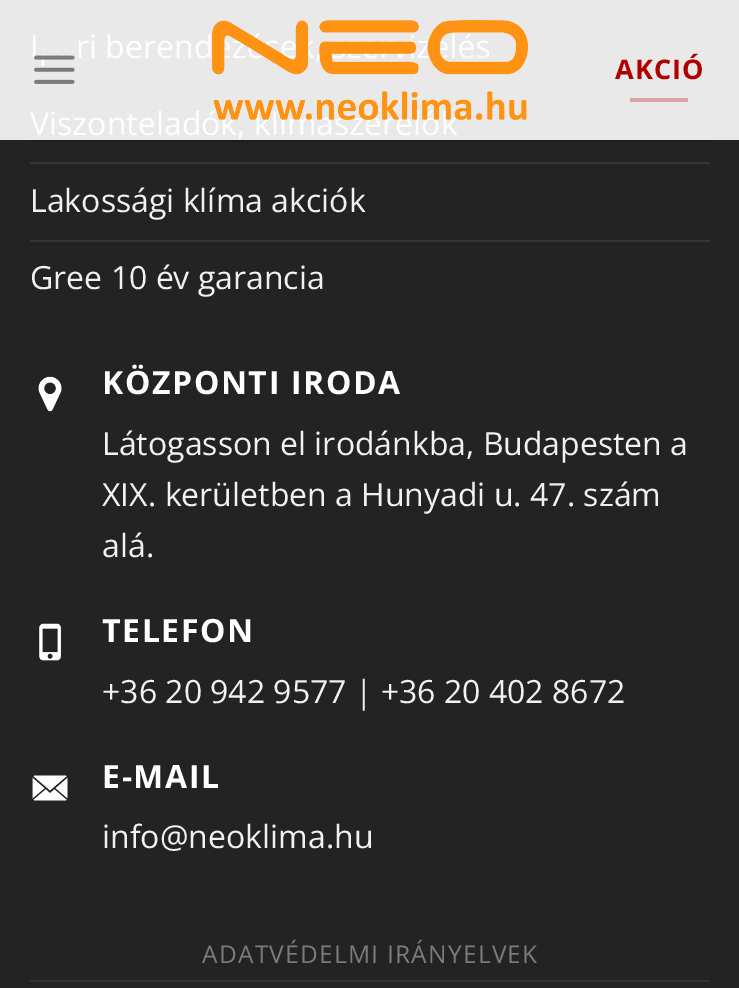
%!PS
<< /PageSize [739 988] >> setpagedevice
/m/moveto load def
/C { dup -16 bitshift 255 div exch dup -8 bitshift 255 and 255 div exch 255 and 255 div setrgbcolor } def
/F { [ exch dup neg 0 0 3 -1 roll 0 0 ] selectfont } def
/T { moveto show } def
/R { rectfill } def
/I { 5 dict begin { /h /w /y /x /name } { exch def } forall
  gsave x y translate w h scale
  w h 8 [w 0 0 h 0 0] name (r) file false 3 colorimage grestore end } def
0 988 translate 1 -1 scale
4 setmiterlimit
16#232323 C
0 0 739 988 R
16#E9E9E9 C
0 0 739 140 R
/OpenSans-Regular 32 F
16#FEFEFE C
(I) 30 58 T
(ri berend) 76 58 T
(,) 315 58 T
(lés) 449 58 T
(Viszonteladók, klímaszerelők) 30 135 T
16#353535 C
30 162 680 2 R
16#F1F1F1 C
(Lakossági klíma akciók) 30 212 T
16#353535 C
30 240 680 2 R
16#F1F1F1 C
(Gree 10 év garancia) 30 289 T
(1.rgb) 38 376 24 36 I
/OpenSans-Bold 32 F
16#FEFEFE C
102 394 m 1.6 0 (KÖZPONTI IRODA) ashow
/OpenSans-Regular 32 F
16#F1F1F1 C
(Látogasson el irodánkba, Budapesten a) 102 455 T
(XIX. kerületben a Hunyadi u. 47. szám) 102 506 T
(alá.) 102 557 T
(2.rgb) 39 623 22 38 I
/OpenSans-Bold 32 F
16#FEFEFE C
102 642 m 1.6 0 (TELEFON) ashow
/OpenSans-Regular 32 F
16#F1F1F1 C
(+36 20 942 9577 | +36 20 402 8672) 102 703 T
(3.rgb) 32 775 36 26 I
/OpenSans-Bold 32 F
16#FEFEFE C
102 788 m 1.6 0 (E-MAIL) ashow
/OpenSans-Regular 32 F
16#F1F1F1 C
(info@neoklima.hu) 102 848 T
16#313131 C
30 980 680 2 R
/OpenSans-Regular 24.5 F
16#7B7B7B C
202 963 m 1.25 0 (ADATVÉDELMI IRÁNYELVEK) ashow
(4.rgb) 34 55 41 29 I
(5.rgb) 211 19 318 101 I
/OpenSans-Bold 27 F
16#B20000 C
615 79 m 1 0 (AKCIÓ) ashow
16#D9A3A3 C
630 98 58 4 R
16#1D1D1D C
30 140 680 2 R
showpage
